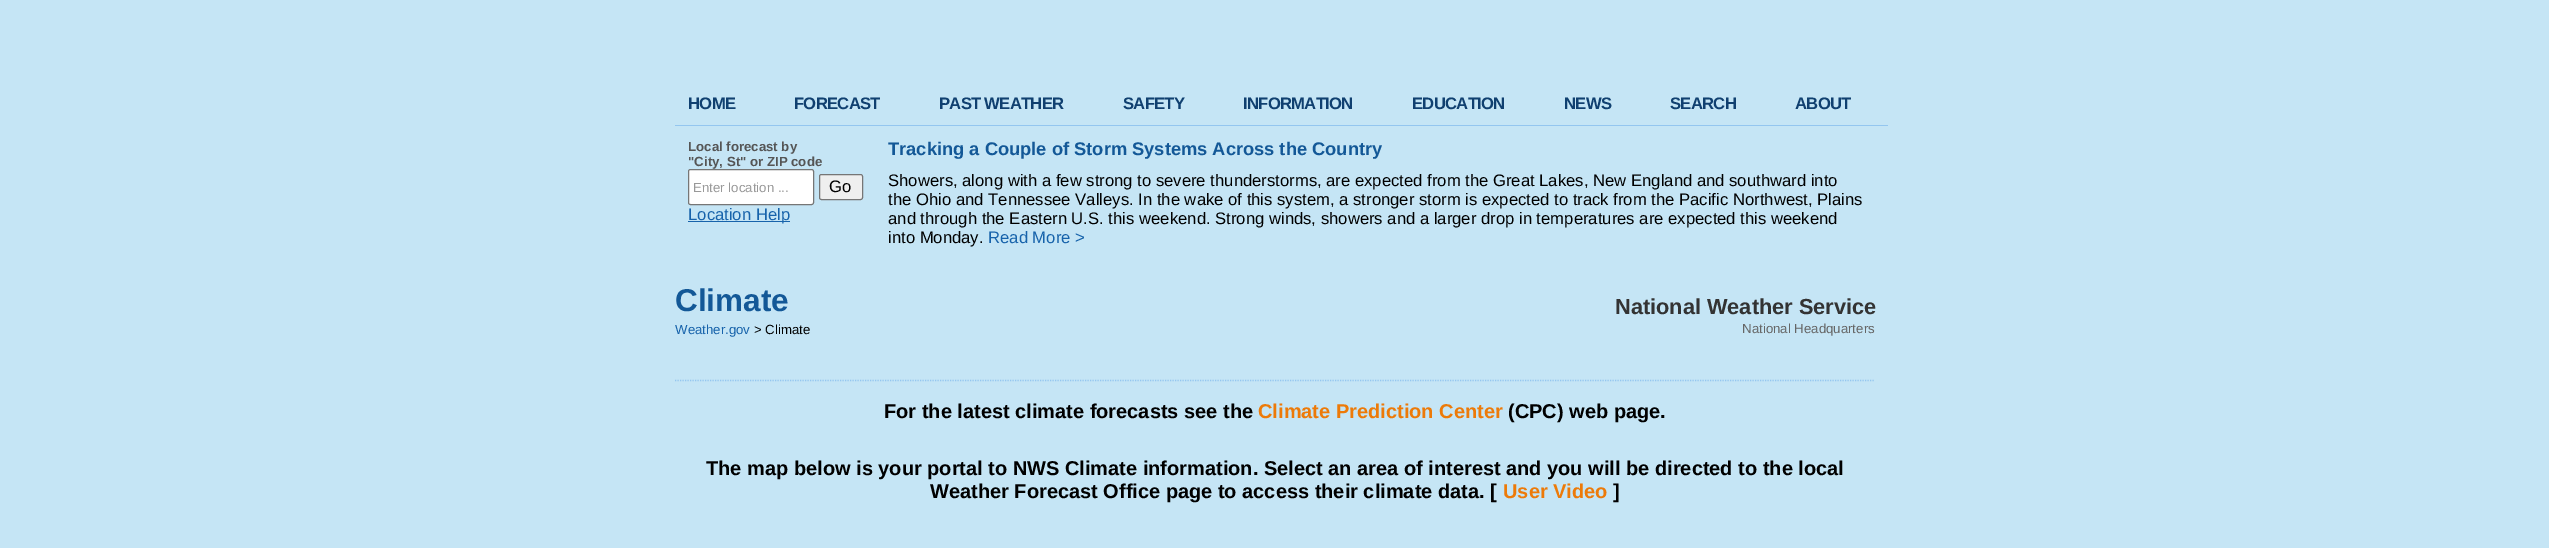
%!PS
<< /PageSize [2549 548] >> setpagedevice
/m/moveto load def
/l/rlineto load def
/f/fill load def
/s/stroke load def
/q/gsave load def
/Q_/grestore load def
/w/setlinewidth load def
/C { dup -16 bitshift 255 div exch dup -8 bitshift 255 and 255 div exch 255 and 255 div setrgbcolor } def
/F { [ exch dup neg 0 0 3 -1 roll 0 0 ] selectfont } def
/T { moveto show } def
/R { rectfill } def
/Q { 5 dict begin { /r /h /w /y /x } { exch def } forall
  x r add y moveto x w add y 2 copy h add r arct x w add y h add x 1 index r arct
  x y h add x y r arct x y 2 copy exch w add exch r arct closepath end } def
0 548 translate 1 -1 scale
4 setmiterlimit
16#C5E5F5 C
0 0 2549 548 R
16#94C6EF C
675 125 1213 1 R
/LiberationSans-Bold 16.67 F
16#104070 C
688 109 m -.75 0 (HOME) ashow
794 109 m -.75 0 (FORECAST) ashow
939 109 m -.75 0 (PAST WEATHER) ashow
1123 109 m -.75 0 (SAFETY) ashow
1243 109 m -.75 0 (INFORMATION) ashow
1412 109 m -.75 0 (EDUCATION) ashow
1564 109 m -.75 0 (NEWS) ashow
1670 109 m -.75 0 (SEARCH) ashow
1795 109 m -.75 0 (ABOUT) ashow
/LiberationSans-Bold 13.25 F
16#555555 C
(Local forecast by) 688 151 T
("City, St" or ZIP code) 688 166 T
16#FFFFFF C
688.5 169.5 125 35 2 Q q f Q_
16#767676 C
s
/LiberationSans-Regular 13.25 F
16#999999 C
(Enter location ...) 693 192 T
16#EFEFEF C
819.5 174.5 43 25 2 Q q f Q_
16#767676 C
s
/LiberationSans-Regular 16.67 F
16#000000 C
(Go) 829 192 T
16#1763AB C
688 221 102 1 R
(Location Help) 688 220 T
/LiberationSans-Bold 18.3 F
16#135897 C
(Tracking a Couple of Storm Systems Across the Country) 888 155 T
/LiberationSans-Regular 16.67 F
16#000000 C
(Showers, along with a few strong to severe thunderstorms, are expected from the Great Lakes, New England and southward into) 888 186 T
(the Ohio and Tennessee Valleys. In the wake of this system, a stronger storm is expected to track from the Pacific Northwest, Plains) 888 205 T
(and through the Eastern U.S. this weekend. Strong winds, showers and a larger drop in temperatures are expected this weekend) 888 224 T
(into Monday.) 888 243 T
16#1763AB C
(Read More >) 988 243 T
/LiberationSans-Bold 31.5 F
16#135897 C
(Climate) 675 311 T
/LiberationSans-Regular 13.25 F
16#1763AB C
(Weather.gov) 675 334 T
16#000000 C
(> Climate) 754 334 T
/LiberationSans-Bold 21.75 F
16#333333 C
(National Weather Service) 1615 314 T
/LiberationSans-Regular 13.25 F
16#666666 C
(National Headquarters) 1742 333 T
16#94C6EF C
1.2 w
[1.25 1.25] 0 setdash
675 380.5 m 1200 0 l s
/LiberationSans-Bold 20 F
16#000000 C
(For the latest climate forecasts see the) 884 418 T
16#ED7A08 C
(Climate Prediction Center) 1258 418 T
16#000000 C
(\(CPC\) web page.) 1508 418 T
(The map below is your portal to NWS Climate information. Select an area of interest and you will be directed to the local) 706 475 T
(Weather Forecast Office page to access their climate data. [) 930 498 T
16#ED7A08 C
(User Video) 1503 498 T
16#000000 C
(]) 1613 498 T
showpage
